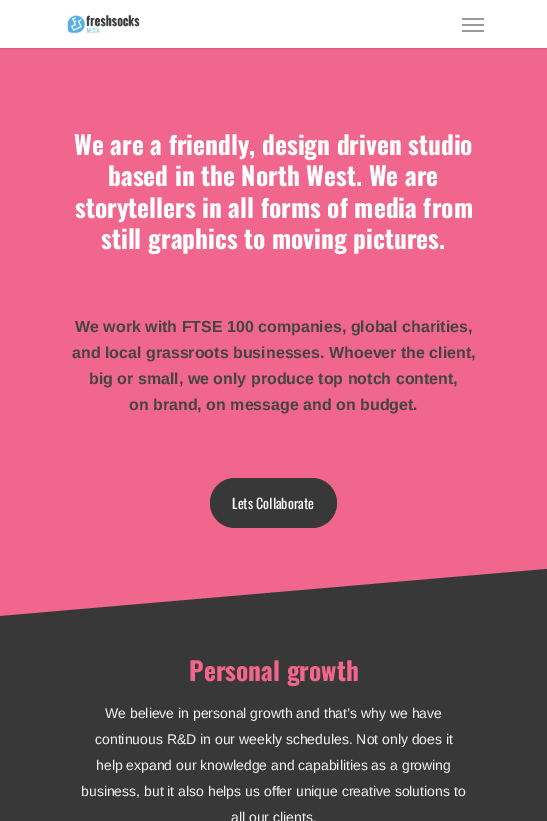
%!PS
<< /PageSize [547 821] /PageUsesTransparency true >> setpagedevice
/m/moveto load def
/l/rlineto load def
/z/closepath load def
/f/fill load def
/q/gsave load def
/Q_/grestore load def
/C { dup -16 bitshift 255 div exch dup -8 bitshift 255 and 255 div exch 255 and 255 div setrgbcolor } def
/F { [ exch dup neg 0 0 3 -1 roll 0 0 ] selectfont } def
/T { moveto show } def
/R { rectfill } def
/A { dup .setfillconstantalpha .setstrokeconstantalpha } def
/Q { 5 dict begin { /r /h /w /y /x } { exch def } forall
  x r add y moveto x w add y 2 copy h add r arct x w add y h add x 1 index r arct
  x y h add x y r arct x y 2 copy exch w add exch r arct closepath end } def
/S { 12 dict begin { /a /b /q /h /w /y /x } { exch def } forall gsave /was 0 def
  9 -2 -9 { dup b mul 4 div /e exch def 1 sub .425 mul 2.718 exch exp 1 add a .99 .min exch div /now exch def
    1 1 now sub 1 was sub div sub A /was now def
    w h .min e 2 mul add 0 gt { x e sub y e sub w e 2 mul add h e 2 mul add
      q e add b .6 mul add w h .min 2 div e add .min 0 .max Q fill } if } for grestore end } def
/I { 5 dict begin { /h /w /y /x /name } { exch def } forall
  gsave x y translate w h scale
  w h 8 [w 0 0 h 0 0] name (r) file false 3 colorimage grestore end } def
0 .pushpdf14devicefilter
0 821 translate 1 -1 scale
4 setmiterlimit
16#FFFFFF C
0 0 547 821 R
16#F1668D C
0 48 547 569 R
q
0 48 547 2 rectclip
16#000000 C
0 0 547 48 0 1.5 .22 S
Q_
(1.rgb) 67 15 73 19 I
16#999999 C
462 18 22 2 R
462 30 22 2 R
462 24 22 2 R
/Oswald-Bold 25.5 F
16#FFFFFF C
(We are a friendly, design driven studio) 74 155 T
(based in the North West. We are) 108 186 T
(storytellers in all forms of media from) 75 218 T
(still graphics to moving pictures.) 101 249 T
/LiberationSans-Bold 16 F
16#444444 C
(We work with FTSE 100 companies, global charities,) 75 332 T
(and local grassroots businesses. Whoever the client,) 72 358 T
(big or small, we only produce top notch content,) 89 384 T
(on brand, on message and on budget.) 129 410 T
16#383838 C
210 478 127 50 25 Q f
/Oswald-Regular 14 F
16#FFFFFF C
(Lets Collaborate) 232 509 T
16#383838 C
547 618 m 0 -49 l -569 49 l z f
0 618 547 203 R
/Oswald-Bold 25.5 F
16#F1668D C
(Personal growth) 189 681 T
/LiberationSans-Regular 14 F
16#F2F2F2 C
(We believe in personal growth and that’s why we have) 105 718 T
(continuous R&D in our weekly schedules. Not only does it) 95 744 T
(help expand our knowledge and capabilities as a growing) 96 770 T
(business, but it also helps us offer unique creative solutions to) 81 796 T
(all our clients.) 231 822 T
.poppdf14devicefilter showpage
